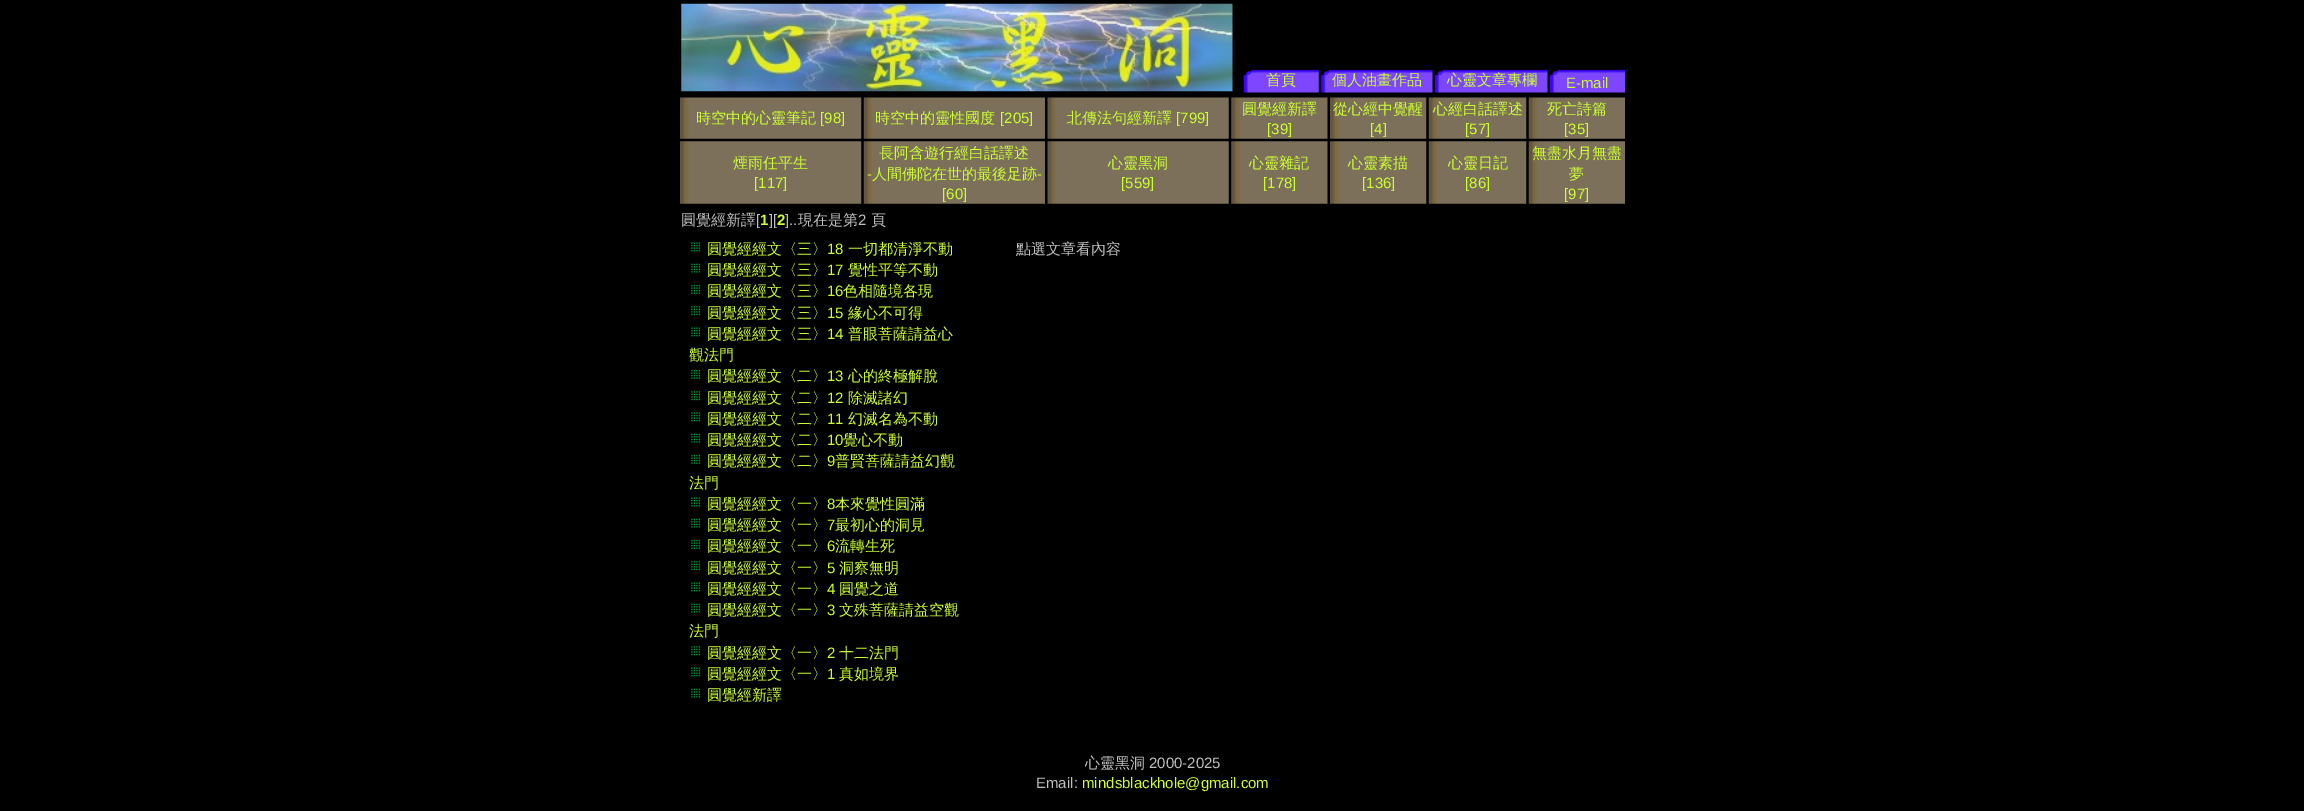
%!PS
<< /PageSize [2304 811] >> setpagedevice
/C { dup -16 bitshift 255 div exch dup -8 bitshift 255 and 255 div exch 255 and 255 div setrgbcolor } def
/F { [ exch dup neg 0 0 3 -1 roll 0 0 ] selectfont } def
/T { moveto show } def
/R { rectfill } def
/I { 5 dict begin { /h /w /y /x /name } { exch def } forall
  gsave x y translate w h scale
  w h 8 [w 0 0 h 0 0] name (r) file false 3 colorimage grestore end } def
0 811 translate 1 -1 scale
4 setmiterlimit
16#000000 C
0 0 2304 811 R
(1.rgb) 681 3 552 89 I
(2.rgb) 1243 69 76 24 I
/WenQuanYiZenHei-Medium 15 F
16#CCFF33 C
(首頁) 1266 85 T
(3.rgb) 1321 69 112 24 I
(個人油畫作品) 1332 85 T
(4.rgb) 1435 69 113 24 I
(心靈文章專欄) 1447 85 T
(5.rgb) 1550 69 75 24 I
/LiberationSans-Regular 15 F
(E-mail) 1566 88 T
(6.rgb) 680 97 182 42 I
/WenQuanYiZenHei-Medium 15 F
(時空中的心靈筆記) 696 123 T
/LiberationSans-Regular 15 F
([98]) 820 123 T
(7.rgb) 863 97 182 42 I
/WenQuanYiZenHei-Medium 15 F
(時空中的靈性國度) 875 123 T
/LiberationSans-Regular 15 F
([205]) 1000 123 T
(8.rgb) 1047 97 182 42 I
/WenQuanYiZenHei-Medium 15 F
(北傳法句經新譯) 1067 123 T
/LiberationSans-Regular 15 F
([799]) 1176 123 T
(9.rgb) 1231 97 97 42 I
/WenQuanYiZenHei-Medium 15 F
(圓覺經新譯) 1242 114 T
/LiberationSans-Regular 15 F
([39]) 1267 134 T
(10.rgb) 1330 97 97 42 I
/WenQuanYiZenHei-Medium 15 F
(從心經中覺醒) 1333 114 T
/LiberationSans-Regular 15 F
([4]) 1370 134 T
(11.rgb) 1428 97 99 42 I
/WenQuanYiZenHei-Medium 15 F
(心經白話譯述) 1433 114 T
/LiberationSans-Regular 15 F
([57]) 1465 134 T
(12.rgb) 1528 97 97 42 I
/WenQuanYiZenHei-Medium 15 F
(死亡詩篇) 1547 114 T
/LiberationSans-Regular 15 F
([35]) 1564 134 T
(13.rgb) 680 141 182 63 I
/WenQuanYiZenHei-Medium 15 F
(煙雨任平生) 733 168 T
/LiberationSans-Regular 15 F
([117]) 754 188 T
(14.rgb) 863 141 182 63 I
/WenQuanYiZenHei-Medium 15 F
(長阿含遊行經白話譯述) 879 158 T
/LiberationSans-Regular 15 F
(-) 867 179 T
/WenQuanYiZenHei-Medium 15 F
(人間佛陀在世的最後足跡) 872 179 T
/LiberationSans-Regular 15 F
(-) 1037 179 T
([60]) 942 199 T
(15.rgb) 1047 141 182 63 I
/WenQuanYiZenHei-Medium 15 F
(心靈黑洞) 1108 168 T
/LiberationSans-Regular 15 F
([559]) 1121 188 T
(16.rgb) 1231 141 97 63 I
/WenQuanYiZenHei-Medium 15 F
(心靈雜記) 1249 168 T
/LiberationSans-Regular 15 F
([178]) 1263 188 T
(17.rgb) 1330 141 97 63 I
/WenQuanYiZenHei-Medium 15 F
(心靈素描) 1348 168 T
/LiberationSans-Regular 15 F
([136]) 1362 188 T
(18.rgb) 1428 141 99 63 I
/WenQuanYiZenHei-Medium 15 F
(心靈日記) 1448 168 T
/LiberationSans-Regular 15 F
([86]) 1465 188 T
(19.rgb) 1528 141 97 63 I
/WenQuanYiZenHei-Medium 15 F
(無盡水月無盡) 1532 158 T
(夢) 1569 179 T
/LiberationSans-Regular 15 F
([97]) 1564 199 T
/WenQuanYiZenHei-Medium 15 F
16#C0C0C0 C
(圓覺經新譯) 681 225 T
/LiberationSans-Regular 15 F
([) 756 225 T
/LiberationSans-Bold 15 F
16#CCFF33 C
(1) 760 225 T
/LiberationSans-Regular 15 F
16#C0C0C0 C
(][) 769 225 T
/LiberationSans-Bold 15 F
16#CCFF33 C
(2) 777 225 T
/LiberationSans-Regular 15 F
16#C0C0C0 C
(]..) 785 225 T
/WenQuanYiZenHei-Medium 15 F
(現在是第) 798 225 T
/LiberationSans-Regular 15 F
(2) 858 225 T
/WenQuanYiZenHei-Medium 15 F
(頁) 871 225 T
(20.rgb) 691 242 10 10 I
16#CCFF33 C
(圓覺經經文〈三〉) 707 254 T
/LiberationSans-Regular 15 F
(18) 827 254 T
/WenQuanYiZenHei-Medium 15 F
(一切都清淨不動) 848 254 T
(21.rgb) 691 263 10 10 I
(圓覺經經文〈三〉) 707 275 T
/LiberationSans-Regular 15 F
(17) 827 275 T
/WenQuanYiZenHei-Medium 15 F
(覺性平等不動) 848 275 T
(22.rgb) 691 284 10 10 I
(圓覺經經文〈三〉) 707 296 T
/LiberationSans-Regular 15 F
(16) 827 296 T
/WenQuanYiZenHei-Medium 15 F
(色相隨境各現) 843 296 T
(23.rgb) 691 306 10 10 I
(圓覺經經文〈三〉) 707 318 T
/LiberationSans-Regular 15 F
(15) 827 318 T
/WenQuanYiZenHei-Medium 15 F
(緣心不可得) 848 318 T
(20.rgb) 691 327 10 10 I
(圓覺經經文〈三〉) 707 339 T
/LiberationSans-Regular 15 F
(14) 827 339 T
/WenQuanYiZenHei-Medium 15 F
(普眼菩薩請益心) 848 339 T
(觀法門) 689 360 T
(22.rgb) 691 369 10 10 I
(圓覺經經文〈二〉) 707 381 T
/LiberationSans-Regular 15 F
(13) 827 381 T
/WenQuanYiZenHei-Medium 15 F
(心的終極解脫) 848 381 T
(23.rgb) 691 391 10 10 I
(圓覺經經文〈二〉) 707 403 T
/LiberationSans-Regular 15 F
(12) 827 403 T
/WenQuanYiZenHei-Medium 15 F
(除滅諸幻) 848 403 T
(20.rgb) 691 412 10 10 I
(圓覺經經文〈二〉) 707 424 T
/LiberationSans-Regular 15 F
(11) 827 424 T
/WenQuanYiZenHei-Medium 15 F
(幻滅名為不動) 848 424 T
(21.rgb) 691 433 10 10 I
(圓覺經經文〈二〉) 707 445 T
/LiberationSans-Regular 15 F
(10) 827 445 T
/WenQuanYiZenHei-Medium 15 F
(覺心不動) 843 445 T
(22.rgb) 691 454 10 10 I
(圓覺經經文〈二〉) 707 466 T
/LiberationSans-Regular 15 F
(9) 827 466 T
/WenQuanYiZenHei-Medium 15 F
(普賢菩薩請益幻觀) 835 466 T
(法門) 689 488 T
(20.rgb) 691 497 10 10 I
(圓覺經經文〈一〉) 707 509 T
/LiberationSans-Regular 15 F
(8) 827 509 T
/WenQuanYiZenHei-Medium 15 F
(本來覺性圓滿) 835 509 T
(21.rgb) 691 518 10 10 I
(圓覺經經文〈一〉) 707 530 T
/LiberationSans-Regular 15 F
(7) 827 530 T
/WenQuanYiZenHei-Medium 15 F
(最初心的洞見) 835 530 T
(22.rgb) 691 539 10 10 I
(圓覺經經文〈一〉) 707 551 T
/LiberationSans-Regular 15 F
(6) 827 551 T
/WenQuanYiZenHei-Medium 15 F
(流轉生死) 835 551 T
(23.rgb) 691 561 10 10 I
(圓覺經經文〈一〉) 707 573 T
/LiberationSans-Regular 15 F
(5) 827 573 T
/WenQuanYiZenHei-Medium 15 F
(洞察無明) 839 573 T
(20.rgb) 691 582 10 10 I
(圓覺經經文〈一〉) 707 594 T
/LiberationSans-Regular 15 F
(4) 827 594 T
/WenQuanYiZenHei-Medium 15 F
(圓覺之道) 839 594 T
(21.rgb) 691 603 10 10 I
(圓覺經經文〈一〉) 707 615 T
/LiberationSans-Regular 15 F
(3) 827 615 T
/WenQuanYiZenHei-Medium 15 F
(文殊菩薩請益空觀) 839 615 T
(法門) 689 636 T
(23.rgb) 691 646 10 10 I
(圓覺經經文〈一〉) 707 658 T
/LiberationSans-Regular 15 F
(2) 827 658 T
/WenQuanYiZenHei-Medium 15 F
(十二法門) 839 658 T
(20.rgb) 691 667 10 10 I
(圓覺經經文〈一〉) 707 679 T
/LiberationSans-Regular 15 F
(1) 827 679 T
/WenQuanYiZenHei-Medium 15 F
(真如境界) 839 679 T
(21.rgb) 691 688 10 10 I
(圓覺經新譯) 707 700 T
16#C0C0C0 C
(點選文章看內容) 1016 254 T
(心靈黑洞) 1085 768 T
/LiberationSans-Regular 15 F
(2000-2025) 1149 768 T
(Email:) 1036 788 T
16#CCFF33 C
(mindsblackhole@gmail.com) 1082 788 T
showpage
